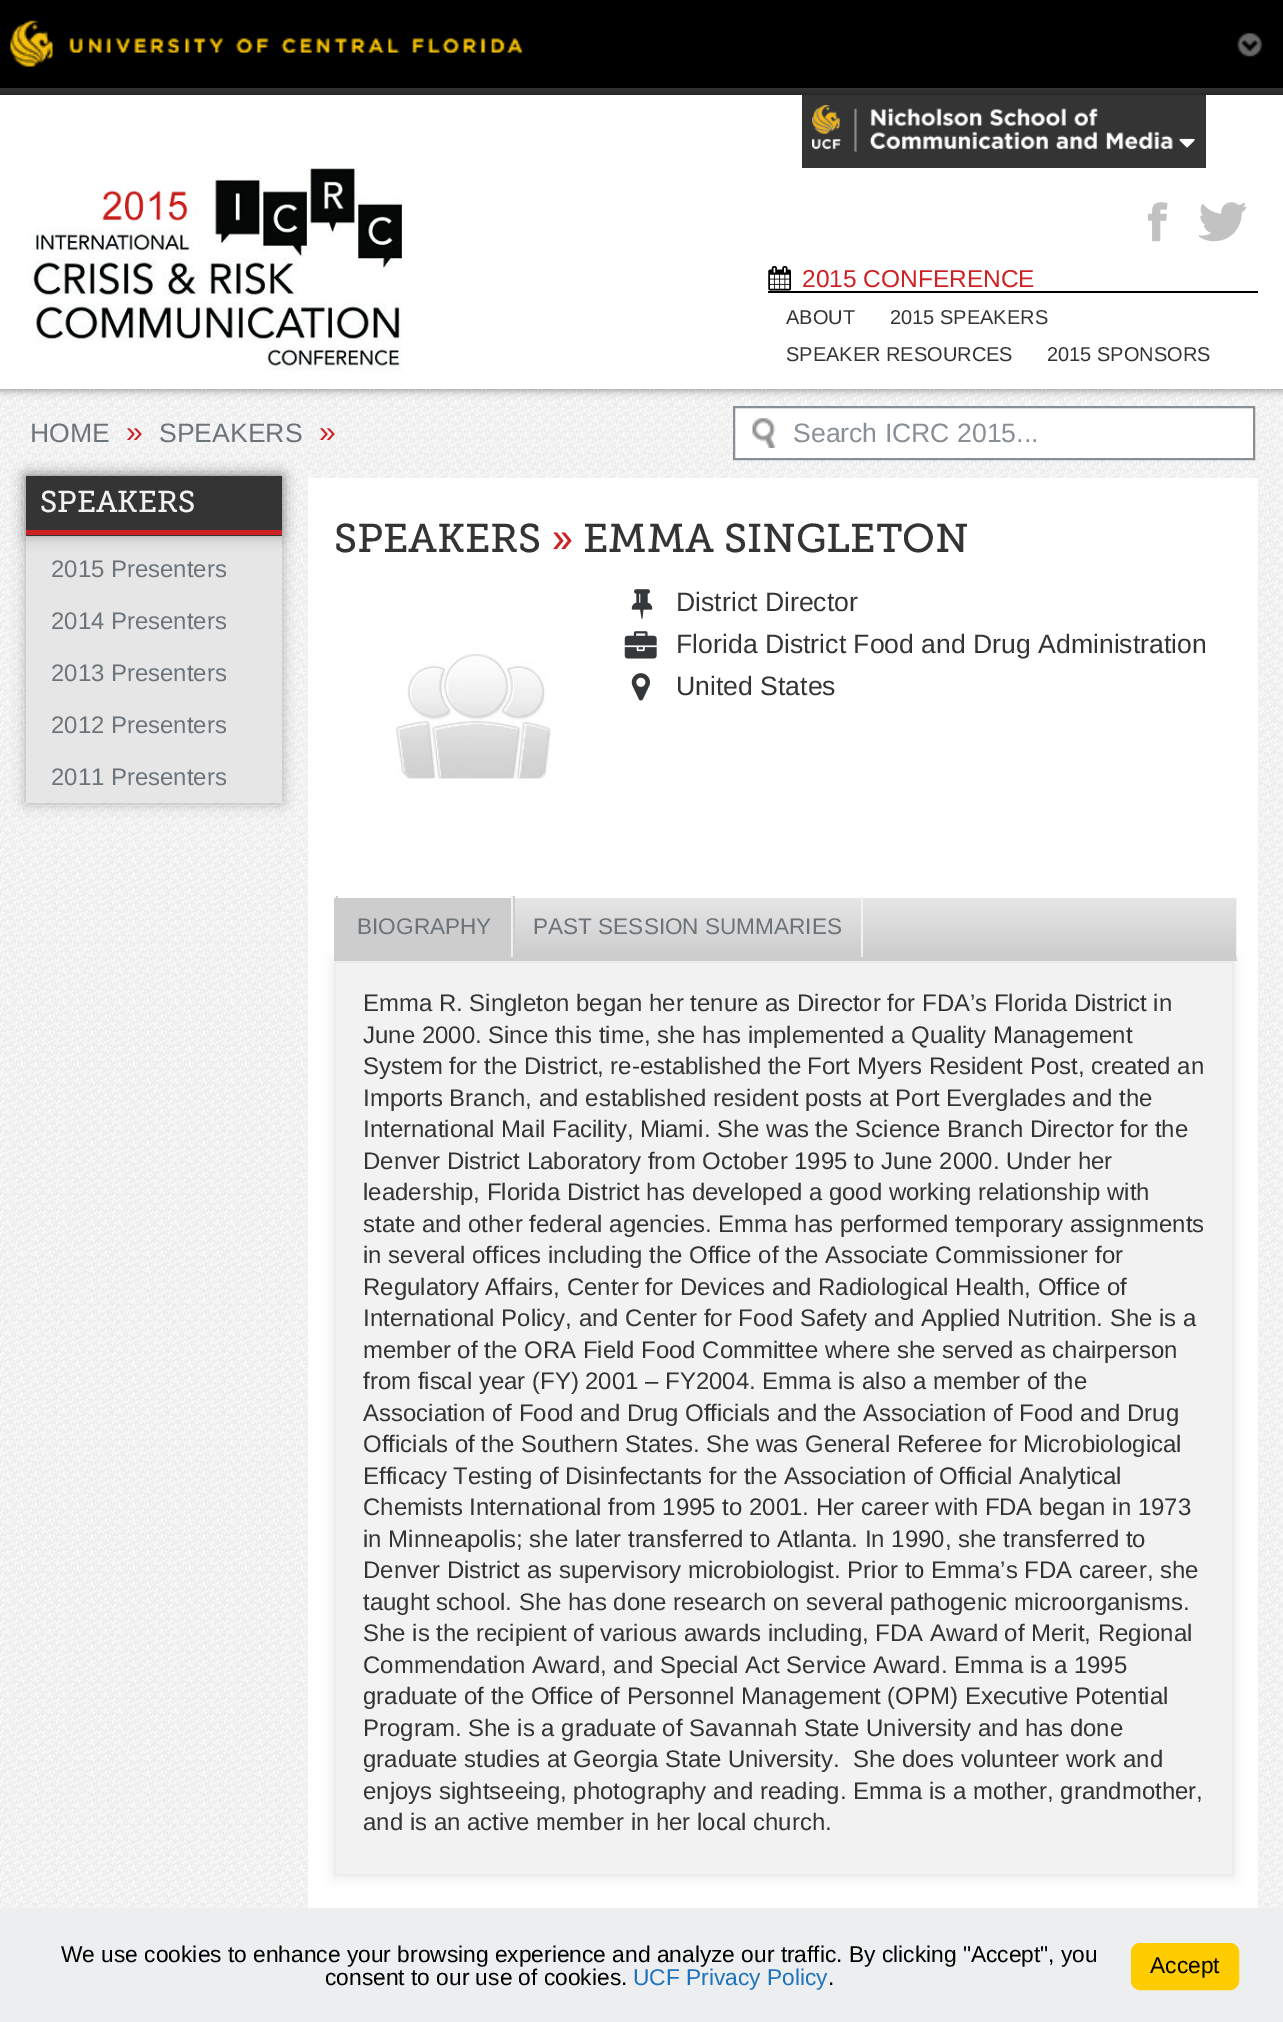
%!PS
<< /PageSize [1283 2022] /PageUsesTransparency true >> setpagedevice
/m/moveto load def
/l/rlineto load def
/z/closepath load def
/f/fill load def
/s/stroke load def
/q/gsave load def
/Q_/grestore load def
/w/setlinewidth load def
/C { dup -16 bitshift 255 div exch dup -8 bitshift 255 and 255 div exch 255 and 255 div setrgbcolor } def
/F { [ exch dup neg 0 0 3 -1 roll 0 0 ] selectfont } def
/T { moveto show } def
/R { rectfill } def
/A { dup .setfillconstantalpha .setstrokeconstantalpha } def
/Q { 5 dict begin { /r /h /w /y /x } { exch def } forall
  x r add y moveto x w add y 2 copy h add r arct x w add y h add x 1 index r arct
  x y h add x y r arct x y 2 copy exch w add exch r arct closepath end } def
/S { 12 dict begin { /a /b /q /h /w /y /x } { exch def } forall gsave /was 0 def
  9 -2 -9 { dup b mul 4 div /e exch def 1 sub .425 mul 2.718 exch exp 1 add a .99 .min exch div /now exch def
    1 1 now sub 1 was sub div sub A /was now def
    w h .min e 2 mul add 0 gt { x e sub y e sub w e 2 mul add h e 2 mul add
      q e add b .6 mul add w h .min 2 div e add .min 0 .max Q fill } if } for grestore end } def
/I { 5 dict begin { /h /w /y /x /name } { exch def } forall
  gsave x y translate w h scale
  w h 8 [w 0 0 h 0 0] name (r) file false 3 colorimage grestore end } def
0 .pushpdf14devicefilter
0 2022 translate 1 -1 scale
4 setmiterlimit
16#343434 C
0 0 1283 2022 R
(9.rgb) 0 389 1283 1519 I
16#000000 C
0 95 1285 294 0 4.5 .5 S
0 0 1283 88 R
(1.rgb) 10 20 514 47 I
(2.rgb) 1237 32 26 25 I
16#FFFFFF C
0 95 1283 294 R
16#343434 C
802 95 404 73 R
(3.rgb) 812 105 361 48 I
(4.rgb) 1179 138 16 10 I
(5.rgb) 29 167 373 204 I
(6.rgb) 1148 202 20 40 I
(7.rgb) 1198 202 49 40 I
16#000000 C
768 291 490 2 R
(8.rgb) 768 266 23 25 I
/LiberationSans-Regular 24.5 F
16#CD2124 C
(2015 CONFERENCE) 802 287 T
/LiberationSans-Regular 20 F
16#343434 C
(ABOUT) 786 324 T
(2015 SPEAKERS) 890 324 T
(SPEAKER RESOURCES) 786 361 T
(2015 SPONSORS) 1047 361 T
/LiberationSans-Regular 26.6 F
16#6C747A C
(HOME) 30 442 T
/LiberationSans-Regular 30 F
16#CD2124 C
(») 126 442 T
/LiberationSans-Regular 26.6 F
16#6C747A C
(SPEAKERS) 159 442 T
/LiberationSans-Regular 30 F
16#CD2124 C
(») 319 442 T
16#FFFFFF C
735 408 518 50 R
(10.rgb) 752 418 24 30 I
16#899095 C
2 w
734 407 520 52 rectstroke
/LiberationSans-Regular 26.6 F
(Search ICRC 2015...) 793 442 T
16#000000 C
26 476 256 327 0 7 .3 S
16#E6E6E6 C
26 536 256 267 R
16#000000 C
26 476 256 60 0 7 .3 S
16#343434 C
26 476 256 60 R
16#CD2124 C
26 530 256 5 R
/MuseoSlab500-Regular 30 F
16#F2F2F2 C
(SPEAKERS) 40 512 T
/LiberationSans-Regular 23.95 F
16#6C747A C
(2015 Presenters) 51 577 T
(2014 Presenters) 51 629 T
(2013 Presenters) 51 681 T
(2012 Presenters) 51 733 T
(2011 Presenters) 51 785 T
16#FFFFFF C
308 478 950 1430 R
/MuseoSlab500-Regular 40 F
16#343434 C
(SPEAKERS) 334 552 T
16#CD2124 C
(») 551 552 T
16#343434 C
(EMMA SINGLETON) 583 552 T
(11.rgb) 631 589 22 30 I
/LiberationSans-Regular 26.6 F
(District Director) 676 611 T
(12.rgb) 624 631 33 28 I
(Florida District Food and Drug Administration) 676 653 T
(13.rgb) 631 673 19 28 I
(United States) 676 695 T
(14.rgb) 396 654 155 125 I
16#000000 C
334 961 900 915 0 7 .1 S
q 515 898 m 721 0 l 0 58 l -721 0 l z clip newpath
<< /ShadingType 2 /ColorSpace /DeviceRGB /Coords [336 956 336 898] /Extend [true true] /Function << /FunctionType 2 /Domain [0 1] /C0 [.804 .804 .804] /C1 [.902 .902 .902] /N 1 >> >> shfill Q_
16#F2F2F2 C
1237 898 m 0 63 l -1 -5 l 0 -58 l z f
16#CDCDCD C
1237 961 m -903 0 l 2 -5 l 900 0 l z f
334 898 2 63 R
338 898 173 58 R
/LiberationSans-Regular 22.6 F
16#6C747A C
(BIOGRAPHY) 357 934 T
16#F2F2F2 C
511 896 2 61 R
16#CDCDCD C
336 896 2 61 R
16#6C747A C
(PAST SESSION SUMMARIES) 533 934 T
16#F2F2F2 C
861 896 2 61 R
16#CDCDCD C
513 896 2 61 R
16#F2F2F2 C
335 962 m 898 0 l 0 913 l -898 0 l z q f Q_
16#ECECEC C
s
/LiberationSans-Regular 23.95 F
16#343434 C
(Emma R. Singleton began her tenure as Director for FDA’s Florida District in) 363 1011 T
(June 2000. Since this time, she has implemented a Quality Management) 363 1043 T
(System for the District, re-established the Fort Myers Resident Post, created an) 363 1074 T
(Imports Branch, and established resident posts at Port Everglades and the) 363 1106 T
(International Mail Facility, Miami. She was the Science Branch Director for the) 363 1137 T
(Denver District Laboratory from October 1995 to June 2000. Under her) 363 1169 T
(leadership, Florida District has developed a good working relationship with) 363 1200 T
(state and other federal agencies. Emma has performed temporary assignments) 363 1232 T
(in several offices including the Office of the Associate Commissioner for) 363 1263 T
(Regulatory Affairs, Center for Devices and Radiological Health, Office of) 363 1295 T
(International Policy, and Center for Food Safety and Applied Nutrition. She is a) 363 1326 T
(member of the ORA Field Food Committee where she served as chairperson) 363 1358 T
(from fiscal year \(FY\) 2001 – FY2004. Emma is also a member of the) 363 1389 T
(Association of Food and Drug Officials and the Association of Food and Drug) 363 1421 T
(Officials of the Southern States. She was General Referee for Microbiological) 363 1452 T
(Efficacy Testing of Disinfectants for the Association of Official Analytical) 363 1484 T
(Chemists International from 1995 to 2001. Her career with FDA began in 1973) 363 1515 T
(in Minneapolis; she later transferred to Atlanta. In 1990, she transferred to) 363 1547 T
(Denver District as supervisory microbiologist. Prior to Emma’s FDA career, she) 363 1578 T
(taught school. She has done research on several pathogenic microorganisms.) 363 1610 T
(She is the recipient of various awards including, FDA Award of Merit, Regional) 363 1641 T
(Commendation Award, and Special Act Service Award. Emma is a 1995) 363 1673 T
(graduate of the Office of Personnel Management \(OPM\) Executive Potential) 363 1704 T
(Program. She is a graduate of Savannah State University and has done) 363 1736 T
(graduate studies at Georgia State University.  She does volunteer work and) 363 1767 T
(enjoys sightseeing, photography and reading. Emma is a mother, grandmother,) 363 1799 T
(and is an active member in her local church.) 363 1830 T
16#ECEEEF C
0 1908 1283 114 R
/LiberationSans-Regular 22.75 F
16#000000 C
(We use cookies to enhance your browsing experience and analyze our traffic. By clicking "Accept", you) 61 1962 T
(consent to our use of cookies.) 325 1985 T
16#1E73BE C
(UCF Privacy Policy) 633 1985 T
16#000000 C
(.) 828 1985 T
16#FFCC00 C
1132 1944 106 45 8 Q q f Q_
s
16#000000 C
(Accept) 1150 1973 T
.poppdf14devicefilter showpage
